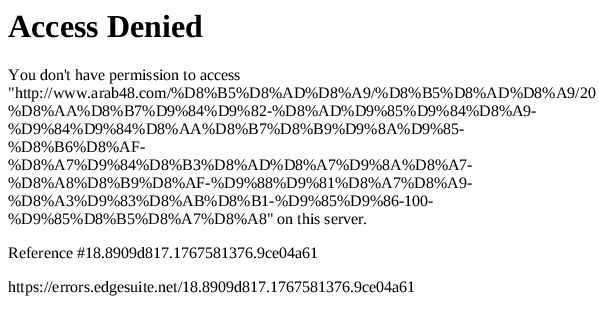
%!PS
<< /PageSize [599 321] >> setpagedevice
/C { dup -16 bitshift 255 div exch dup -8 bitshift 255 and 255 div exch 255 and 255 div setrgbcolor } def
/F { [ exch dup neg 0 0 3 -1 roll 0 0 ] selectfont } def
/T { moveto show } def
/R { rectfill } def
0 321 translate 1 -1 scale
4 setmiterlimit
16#FFFFFF C
0 0 599 321 R
/LiberationSerif-Bold 32 F
16#000000 C
(Access Denied) 8 37 T
/LiberationSerif-Regular 16 F
(You don't have permission to access) 8 80 T
("http://www.arab48.com/%D8%B5%D8%AD%D8%A9/%D8%B5%D8%AD%D8%A9/20) 8 98 T
(%D8%AA%D8%B7%D9%84%D9%82-%D8%AD%D9%85%D9%84%D8%A9-) 8 116 T
(%D9%84%D9%84%D8%AA%D8%B7%D8%B9%D9%8A%D9%85-) 8 134 T
(%D8%B6%D8%AF-) 8 152 T
(%D8%A7%D9%84%D8%B3%D8%AD%D8%A7%D9%8A%D8%A7-) 8 170 T
(%D8%A8%D8%B9%D8%AF-%D9%88%D9%81%D8%A7%D8%A9-) 8 188 T
(%D8%A3%D9%83%D8%AB%D8%B1-%D9%85%D9%86-100-) 8 206 T
(%D9%85%D8%B5%D8%A7%D8%A8" on this server.) 8 224 T
(Reference #18.8909d817.1767581376.9ce04a61) 8 258 T
(https://errors.edgesuite.net/18.8909d817.1767581376.9ce04a61) 8 292 T
showpage
